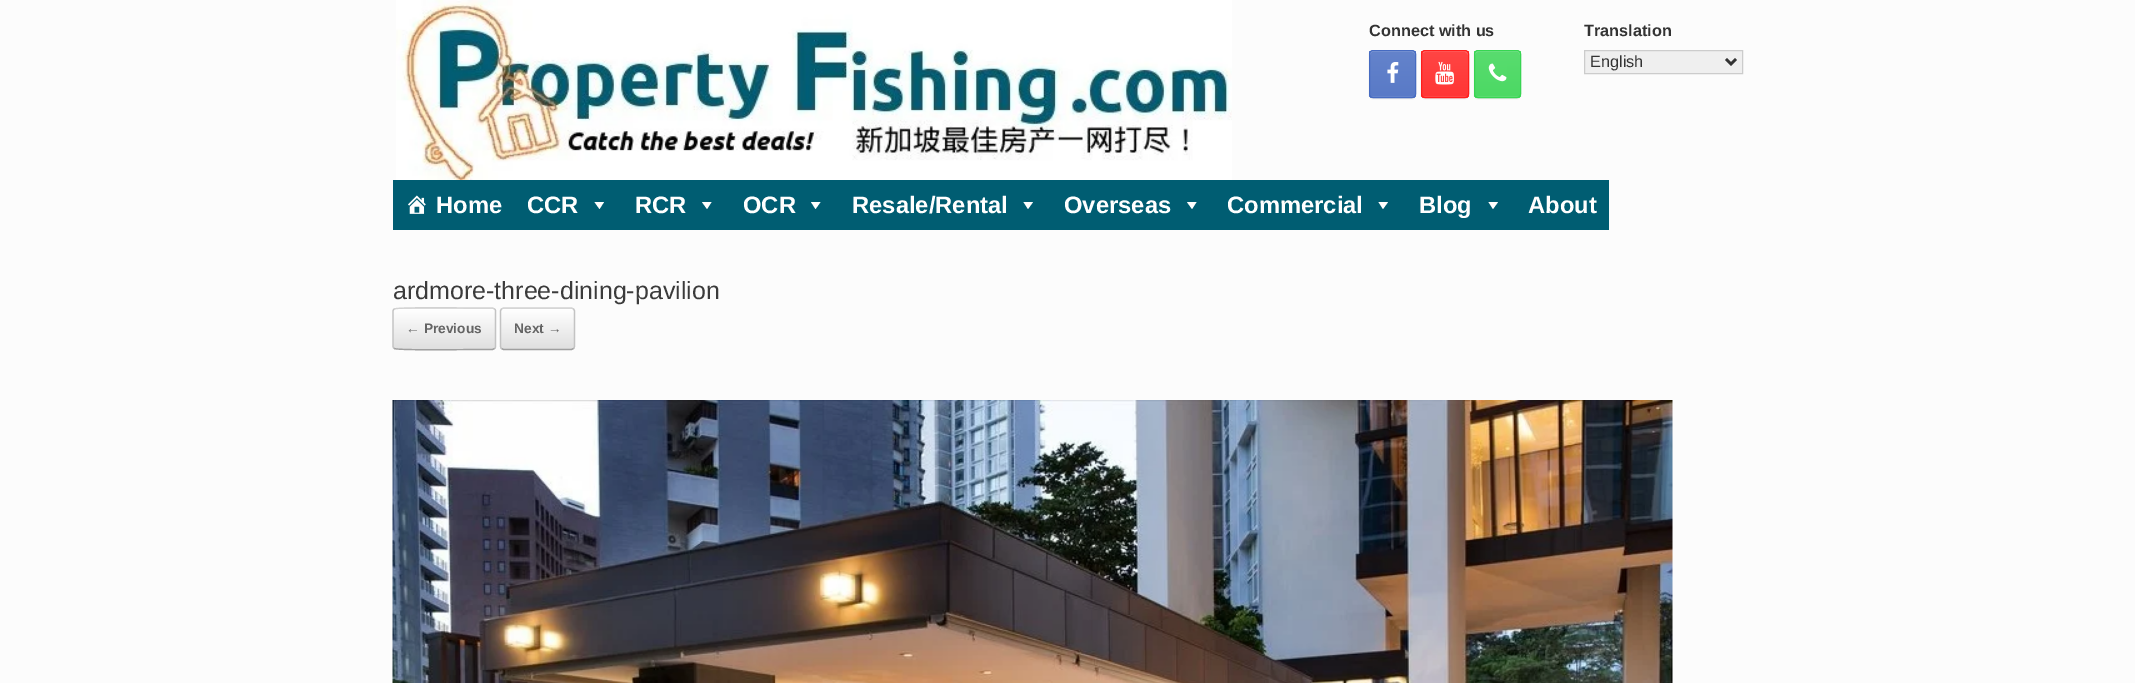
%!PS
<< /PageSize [2135 683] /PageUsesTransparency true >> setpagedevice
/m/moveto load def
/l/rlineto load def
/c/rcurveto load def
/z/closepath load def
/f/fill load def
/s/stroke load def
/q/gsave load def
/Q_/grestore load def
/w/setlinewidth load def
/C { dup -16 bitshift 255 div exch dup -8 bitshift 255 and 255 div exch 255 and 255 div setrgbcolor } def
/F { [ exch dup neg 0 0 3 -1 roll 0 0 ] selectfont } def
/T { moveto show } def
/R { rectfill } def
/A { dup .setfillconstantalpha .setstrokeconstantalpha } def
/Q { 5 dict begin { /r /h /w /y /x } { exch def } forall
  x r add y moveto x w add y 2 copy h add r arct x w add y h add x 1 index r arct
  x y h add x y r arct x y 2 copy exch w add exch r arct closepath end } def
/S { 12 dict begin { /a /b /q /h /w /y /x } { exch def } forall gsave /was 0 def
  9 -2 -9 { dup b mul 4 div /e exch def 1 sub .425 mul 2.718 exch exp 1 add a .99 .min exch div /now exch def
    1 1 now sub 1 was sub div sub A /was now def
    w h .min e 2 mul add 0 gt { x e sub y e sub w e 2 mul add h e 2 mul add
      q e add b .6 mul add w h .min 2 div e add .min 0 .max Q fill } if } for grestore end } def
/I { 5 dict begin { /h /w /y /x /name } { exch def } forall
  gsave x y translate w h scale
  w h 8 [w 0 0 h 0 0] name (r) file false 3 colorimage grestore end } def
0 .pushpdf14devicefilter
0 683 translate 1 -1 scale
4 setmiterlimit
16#FCFCFC C
0 0 2135 683 R
(1.rgb) 396 0 836 180 I
/LiberationSans-Bold 16.25 F
16#333333 C
(Connect with us) 1369 36 T
16#000000 C
1369 51 47 48 4 .5 .1 S
q
1369 50 47 48 4 Q clip newpath
q 1369 51 m 47 0 l 0 45 l -47 0 l z clip newpath
<< /ShadingType 2 /ColorSpace /DeviceRGB /Coords [1370 96 1370 51] /Extend [true true] /Function << /FunctionType 2 /Domain [0 1] /C0 [.349 .478 .78] /C1 [.392 .514 .796] /N 1 >> >> shfill Q_
q 1369 96 m 47 0 l 0 2 l -47 0 l z clip newpath
<< /ShadingType 2 /ColorSpace /DeviceRGB /Coords [1370 141 1370 96] /Extend [true true] /Function << /FunctionType 2 /Domain [0 1] /C0 [.349 .478 .78] /C1 [.392 .514 .796] /N 1 >> >> shfill Q_
Q_
16#839CD5 C
1372 52 m 40 0 l 2 0 3 2 3 3 c 0 -6 -4 -4 -9 -4 c -27 0 l -5 0 -9 -2 -9 4 c 0 -1 1 -3 2 -3 c z f
16#466BC1 C
1369.5 50.5 46 47 3.5 Q s
(2.rgb) 1387 62 12 21 I
16#000000 C
1421 51 48 48 4 .5 .1 S
q
1421 50 48 48 4 Q clip newpath
q 1421 51 m 48 0 l 0 45 l -48 0 l z clip newpath
<< /ShadingType 2 /ColorSpace /DeviceRGB /Coords [1423 96 1423 51] /Extend [true true] /Function << /FunctionType 2 /Domain [0 1] /C0 [1 .212 .208] /C1 [1 .271 .267] /N 1 >> >> shfill Q_
q 1421 96 m 48 0 l 0 2 l -48 0 l z clip newpath
<< /ShadingType 2 /ColorSpace /DeviceRGB /Coords [1423 141 1423 96] /Extend [true true] /Function << /FunctionType 2 /Domain [0 1] /C0 [1 .212 .208] /C1 [1 .271 .267] /N 1 >> >> shfill Q_
Q_
16#FF6A69 C
1425 52 m 40 0 l 1 0 3 2 3 3 c 0 -1 l 0 -2 -1 -3 -2 -3 c -40 0 l -2 0 -3 1 -3 2 c z f
16#FF1D1B C
1421.5 50.5 47 47 3.5 Q s
(3.rgb) 1435 61 19 24 I
16#000000 C
1474 51 47 48 4 .5 .1 S
q
1474 50 47 48 4 Q clip newpath
q 1474 51 m 47 0 l 0 45 l -47 0 l z clip newpath
<< /ShadingType 2 /ColorSpace /DeviceRGB /Coords [1475 96 1475 51] /Extend [true true] /Function << /FunctionType 2 /Domain [0 1] /C0 [.298 .851 .392] /C1 [.349 .863 .435] /N 1 >> >> shfill Q_
q 1474 96 m 47 0 l 0 2 l -47 0 l z clip newpath
<< /ShadingType 2 /ColorSpace /DeviceRGB /Coords [1475 141 1475 96] /Extend [true true] /Function << /FunctionType 2 /Domain [0 1] /C0 [.298 .851 .392] /C1 [.349 .863 .435] /N 1 >> >> shfill Q_
Q_
16#7AE38C C
1478 52 m 40 0 l 1 0 2 2 2 3 c 0 -6 -4 -4 -9 -4 c -27 0 l -5 0 -9 -2 -9 4 c 0 -1 1 -3 3 -3 c z f
16#37D552 C
1474.5 50.5 46 47 3.5 Q s
(4.rgb) 1488 63 19 19 I
16#333333 C
(Translation) 1584 36 T
16#EFEFEF C
1584.5 50.5 m 158 0 l 0 23 l -158 0 l z q f Q_
16#CCCCCC C
s
16#333333 C
2.5 w
1726 59 m 5 5 l 5 -5 l s
/LiberationSans-Regular 16.25 F
(English) 1590 67 T
16#005D72 C
393 180 1216 50 R
(5.rgb) 408 195 18 19 I
/LiberationSans-Bold 23.75 F
16#FFFFFF C
(Home) 436 213 T
(CCR) 527 213 T
604 202 m -4.5 7 l -5 -7 l z f
(RCR) 635 213 T
711.5 202 m -4.5 7 l -5 -7 l z f
(OCR) 743 213 T
820.5 202 m -5 7 l -4.5 -7 l z f
(Resale/Rental) 852 213 T
1033 202 m -5 7 l -4.5 -7 l z f
(Overseas) 1064 213 T
1196.5 202 m -4.5 7 l -5 -7 l z f
(Commercial) 1227 213 T
1388 202 m -5 7 l -4.5 -7 l z f
(Blog) 1419 213 T
1498 202 m -5 7 l -4.5 -7 l z f
(About) 1528 213 T
/LiberationSans-Regular 25 F
16#3B3B3B C
(ardmore-three-dining-pavilion) 393 299 T
q
393 308 103 42 4 Q clip newpath
q 393 308 m 103 0 l 0 1 l -103 0 l z clip newpath
<< /ShadingType 2 /ColorSpace /DeviceRGB /Coords [394 309 394 269] /Extend [true true] /Function << /FunctionType 2 /Domain [0 1] /C0 [.875 .875 .875] /C1 [1 1 1] /N 1 >> >> shfill Q_
q 393 309 m 103 0 l 0 40 l -103 0 l z clip newpath
<< /ShadingType 2 /ColorSpace /DeviceRGB /Coords [394 349 394 309] /Extend [true true] /Function << /FunctionType 2 /Domain [0 1] /C0 [.875 .875 .875] /C1 [1 1 1] /N 1 >> >> shfill Q_
q 393 349 m 103 0 l 0 1 l -103 0 l z clip newpath
<< /ShadingType 2 /ColorSpace /DeviceRGB /Coords [394 389 394 349] /Extend [true true] /Function << /FunctionType 2 /Domain [0 1] /C0 [.875 .875 .875] /C1 [1 1 1] /N 1 >> >> shfill Q_
Q_
16#D2D2D2 C
1.2 w
394 309 m .5 0 l 2 -2 73 -1 82 -1 c 16 0 l 2 1 l s
16#C3C3C3 C
494.5 309 m 1 .5 1 1.5 1 2 c 0 35 l 0 1 0 2 -1 2.5 c s
16#9F9F9F C
494.5 348.5 m -2 1 l -16 0 l -9 0 -80 1 -82 -1 c -.5 0 l s
16#C3C3C3 C
394 348.5 m -.5 -.5 -1 -1.5 -1 -2.5 c 0 -35 l 0 -.5 .5 -1.5 1 -2 c s
/LiberationSans-Bold 13.75 F
16#646464 C
(← Previous) 406 333 T
q
500 308 75 42 4 Q clip newpath
q 500 308 m 75 0 l 0 1 l -75 0 l z clip newpath
<< /ShadingType 2 /ColorSpace /DeviceRGB /Coords [501 309 501 269] /Extend [true true] /Function << /FunctionType 2 /Domain [0 1] /C0 [.875 .875 .875] /C1 [1 1 1] /N 1 >> >> shfill Q_
q 500 309 m 75 0 l 0 40 l -75 0 l z clip newpath
<< /ShadingType 2 /ColorSpace /DeviceRGB /Coords [501 349 501 309] /Extend [true true] /Function << /FunctionType 2 /Domain [0 1] /C0 [.875 .875 .875] /C1 [1 1 1] /N 1 >> >> shfill Q_
Q_
16#D2D2D2 C
501.5 309 m 2 -1 l 68 0 l 2 1 l s
16#C3C3C3 C
573.5 309 m .5 .5 1 1.5 1 2 c 0 35 l 0 1 -.5 2 -1 2.5 c s
16#9F9F9F C
573.5 348.5 m -2 1 l -68 0 l -2 -1 l s
16#C3C3C3 C
501.5 348.5 m -.5 -.5 -1 -1.5 -1 -2.5 c 0 -35 l 0 -.5 .5 -1.5 1 -2 c s
16#646464 C
(Next →) 514 333 T
(6.rgb) 392 400 1281 283 I
.poppdf14devicefilter showpage
